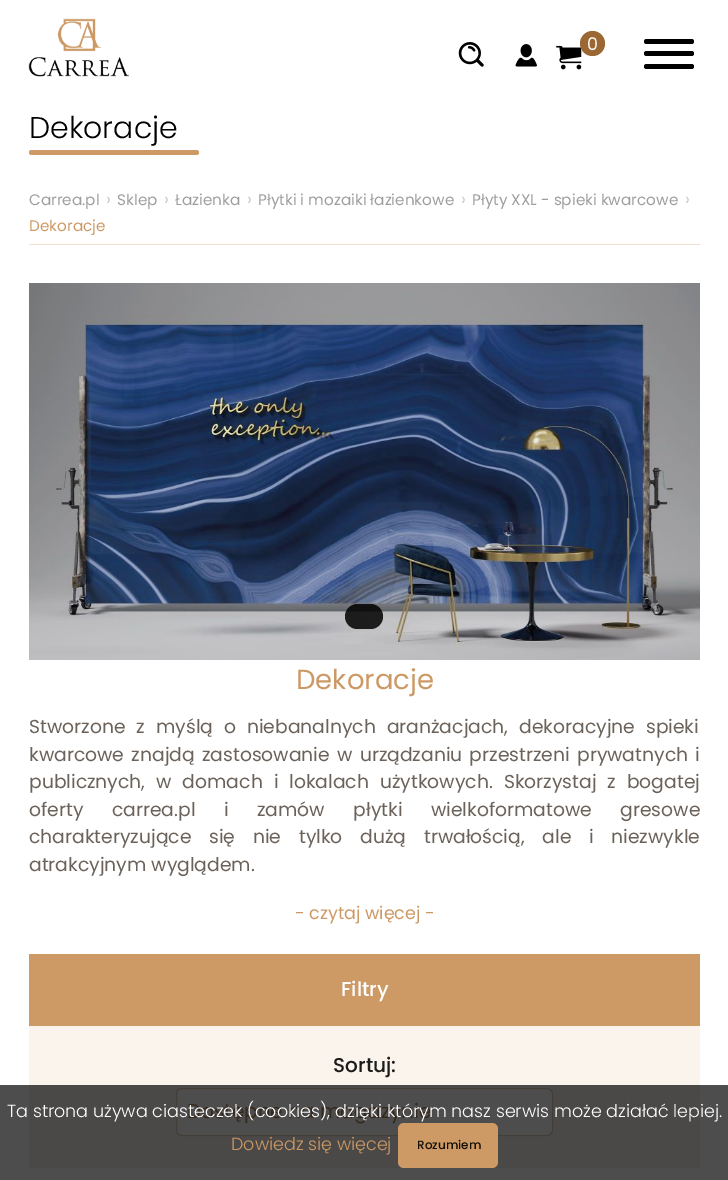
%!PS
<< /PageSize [728 1180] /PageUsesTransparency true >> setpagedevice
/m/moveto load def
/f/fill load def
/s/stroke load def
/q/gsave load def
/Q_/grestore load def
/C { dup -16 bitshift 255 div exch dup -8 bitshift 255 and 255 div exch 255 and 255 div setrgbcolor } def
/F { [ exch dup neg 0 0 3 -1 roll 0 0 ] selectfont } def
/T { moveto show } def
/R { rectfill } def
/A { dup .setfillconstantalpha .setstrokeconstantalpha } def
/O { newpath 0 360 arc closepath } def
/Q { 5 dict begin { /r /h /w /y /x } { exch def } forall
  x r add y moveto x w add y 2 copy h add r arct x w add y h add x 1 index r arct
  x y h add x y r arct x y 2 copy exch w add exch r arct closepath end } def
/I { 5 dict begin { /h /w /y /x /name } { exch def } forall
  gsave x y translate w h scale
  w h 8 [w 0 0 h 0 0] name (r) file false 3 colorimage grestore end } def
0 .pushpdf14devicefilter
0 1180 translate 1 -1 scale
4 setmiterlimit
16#FFFFFF C
0 0 728 1180 R
16#4D4D4D C
0 1085 728 95 R
(1.rgb) 28 18 101 59 I
16#000000 C
644 51 50 5 2.5 Q f
644 39 50 5 2.5 Q f
644 64 50 5 2.5 Q f
(2.rgb) 458 42 26 25 I
(3.rgb) 515 44 22 23 I
(4.rgb) 556 45 26 25 I
16#9B6732 C
592.5 43.5 12.5 O f
/Poppins-Regular 17.5 F
16#FEFEFE C
(0) 587 50 T
/Poppins-Light 30 F
16#000000 C
(Dekoracje) 29 138 T
16#CD9A66 C
29 150 170 5 2.5 Q f
16#F3E0CC C
29 244 671 1 R
/Poppins-Regular 15.25 F
16#9E9E9E C
(Carrea.pl) 29 205 T
/Poppins-Regular 17.5 F
16#CACACA C
(›) 106 205 T
/Poppins-Regular 15.25 F
16#9E9E9E C
(Sklep) 117 205 T
/Poppins-Regular 17.5 F
16#CACACA C
(›) 164 205 T
/Poppins-Regular 15.25 F
16#9E9E9E C
(Łazienka) 175 205 T
/Poppins-Regular 17.5 F
16#CACACA C
(›) 247 205 T
/Poppins-Regular 15.25 F
16#9E9E9E C
(Płytki i mozaiki łazienkowe) 258 205 T
/Poppins-Regular 17.5 F
16#CACACA C
(›) 461 205 T
/Poppins-Regular 15.25 F
16#9E9E9E C
(Płyty XXL - spieki kwarcowe) 472 205 T
/Poppins-Regular 17.5 F
16#CACACA C
(›) 685 205 T
/Poppins-Regular 15.25 F
16#CC9965 C
(Dekoracje) 29 231 T
(5.rgb) 29 283 671 377 I
0.85 A
16#000000 C
345 604 38 25 12.5 Q f
/Poppins-Regular 27.5 F
1 A
16#CC9965 C
(Dekoracje) 296 689 T
/Poppins-Regular 18.75 F
16#6B635B C
29 733 m 6 0 32 (Stworzone z myślą o niebanalnych aranżacjach, dekoracyjne spieki) widthshow
29 761 m 2.25 0 32 (kwarcowe znajdą zastosowanie w urządzaniu przestrzeni prywatnych i) widthshow
29 788 m 6 0 32 (publicznych, w domach i lokalach użytkowych. Skorzystaj z bogatej) widthshow
29 816 m 23.5 0 32 (oferty carrea.pl i zamów płytki wielkoformatowe gresowe) widthshow
29 843 m 12.75 0 32 (charakteryzujące się nie tylko dużą trwałością, ale i niezwykle) widthshow
(atrakcyjnym wyglądem.) 29 871 T
/Poppins-Regular 17.5 F
16#CC9965 C
(- czytaj więcej -) 295 919 T
16#CD9A66 C
29 954 671 72 R
/Poppins-Medium 20 F
16#FEFEFE C
(Filtry) 341 996 T
16#FBF4ED C
29 1026 671 59 R
16#4B4947 C
29 1085 671 83 R
16#1B1B1B C
(Sortuj:) 333 1072 T
16#4D4D4D C
176.5 1088.5 376 47 5.5 Q q f Q_
16#433D37 C
s
/Poppins-Regular 20 F
16#35291D C
(Dostępne na magazynie) 187 1118 T
/Poppins-Light 17.5 F
16#FEFEFE C
(Ta strona używa ciasteczek \(cookies\), dzięki którym nasz serwis może działać lepiej.) 7 1117 T
16#CC9965 C
(Dowiedz się więcej) 231 1150 T
16#CD9A66 C
398 1123 100 45 6 Q f
/Poppins-Medium 12 F
16#140E07 C
(Rozumiem) 417 1149 T
.poppdf14devicefilter showpage
